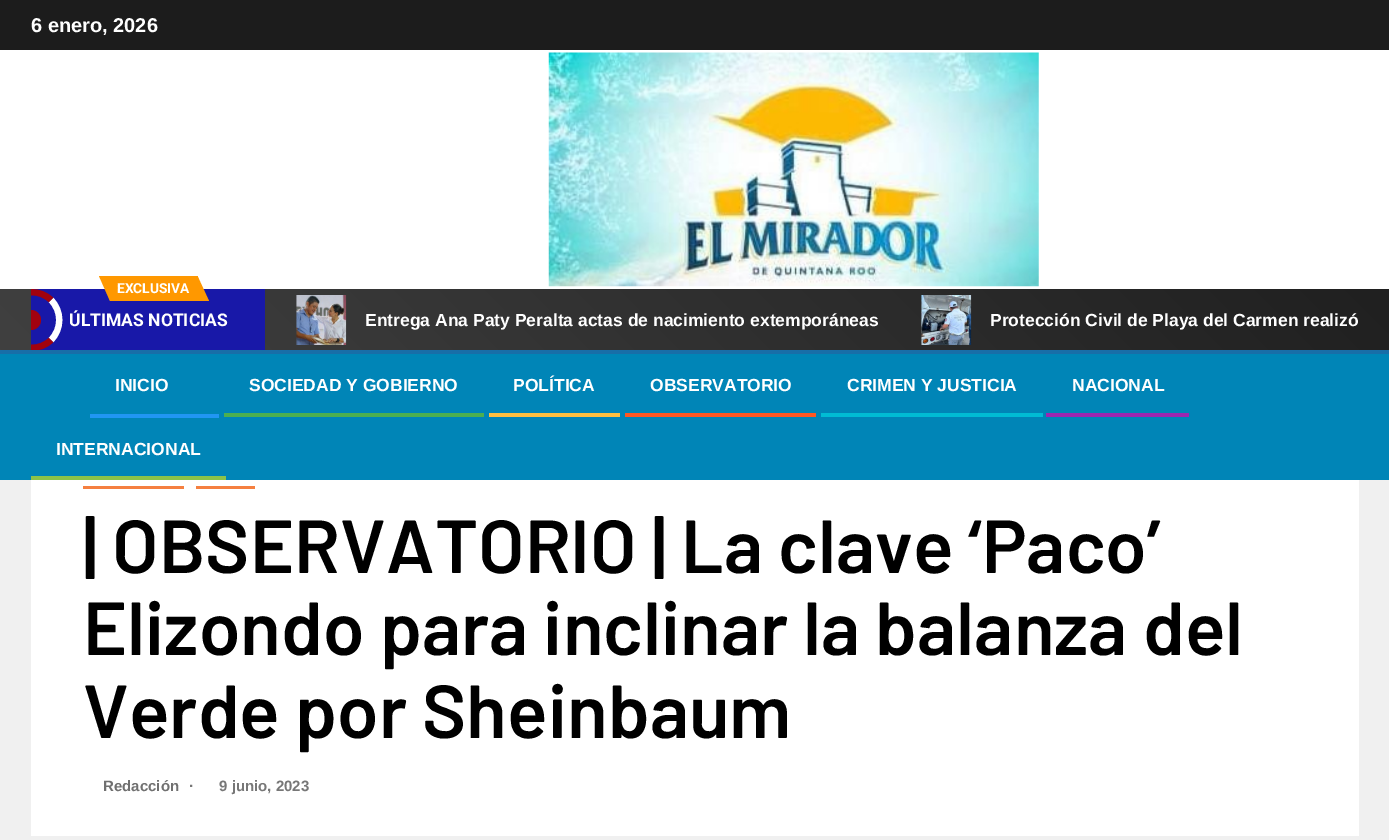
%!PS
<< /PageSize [1389 840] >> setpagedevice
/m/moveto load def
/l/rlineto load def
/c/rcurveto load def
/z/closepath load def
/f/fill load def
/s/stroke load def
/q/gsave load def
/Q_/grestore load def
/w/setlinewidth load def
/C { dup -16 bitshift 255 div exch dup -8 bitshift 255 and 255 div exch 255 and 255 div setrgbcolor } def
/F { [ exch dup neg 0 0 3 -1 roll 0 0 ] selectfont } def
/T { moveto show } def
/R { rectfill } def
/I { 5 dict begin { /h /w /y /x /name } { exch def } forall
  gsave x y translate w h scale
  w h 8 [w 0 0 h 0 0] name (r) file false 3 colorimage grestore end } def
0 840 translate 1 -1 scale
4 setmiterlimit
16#F0F0F0 C
0 0 1389 840 R
16#FFFFFF C
0 50 1389 239 R
16#1C1C1C C
0 0 1389 50 R
/LiberationSans-Bold 20 F
16#FFFFFF C
(6 enero, 2026) 31 32 T
(1.rgb) 548 52 491 235 I
q 0 289 m 1389 0 l 0 61 l -1389 0 l z clip newpath
<< /ShadingType 2 /ColorSpace /DeviceRGB /Coords [332 682 1058 -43] /Extend [true true] /Function << /FunctionType 2 /Domain [0 1] /C0 [.251 .251 .251] /C1 [.125 .125 .125] /N 1 >> >> shfill Q_
16#1818A8 C
31 289 234 61 R
16#FF9800 C
110 276 88 25 R
99 276 m 11 0 l 0 25 l z f
/Roboto-Bold 13.75 F
16#FFFFFF C
(EXCLUSIVA) 117 293 T
16#FF9800 C
209 301 m -11.5 0 l 0 -25 l z f
16#FFFFFF C
6.2 w
51 300 m 11 11 11 29 0 40 c s
q
31 289 234 61 rectclip
16#A2020F C
11.5 300 m 10.5 -10.5 29 -10.5 39.5 0 c 51 340 m -10.5 10.5 -29 10.5 -39.5 0 c s
Q_
16#A2020F C
31 310 m 5.5 0 10 4.5 10 10 c 0 5.5 -4.5 10 -10 10 c z f
/Roboto-Bold 17.5 F
16#FFFFFF C
(ÚLTIMAS NOTICIAS) 69 326 T
(2.rgb) 296 295 51 50 I
/LiberationSans-Bold 17.5 F
(Entrega Ana Paty Peralta actas de nacimiento extemporáneas) 365 326 T
(3.rgb) 921 295 51 50 I
(Protección Civil de Playa del Carmen realizó) 990 326 T
16#186EA8 C
0 350 1389 4 R
16#0085B7 C
0 354 1389 126 R
16#FFFFFF C
(INICIO) 115 391 T
16#2196F3 C
90 414 129 4 R
16#FFFFFF C
(SOCIEDAD Y GOBIERNO) 249 391 T
16#4CAF50 C
224 413 260 4 R
16#FFFFFF C
(POLÍTICA) 513 391 T
16#FFBF3F C
489 413 131 4 R
16#FFFFFF C
(OBSERVATORIO) 650 391 T
16#FF5722 C
625 413 191 4 R
16#FFFFFF C
(CRIMEN Y JUSTICIA) 847 391 T
16#00BCD4 C
821 413 222 4 R
16#FFFFFF C
(NACIONAL) 1072 391 T
16#9C27B0 C
1046 413 143 4 R
16#FFFFFF C
(INTERNACIONAL) 56 455 T
16#8BC34A C
31 476 195 4 R
16#FFFFFF C
31 480 1328 356 R
16#F58040 C
83 486 101 3 R
196 486 59 3 R
/Barlow-SemiBold 75 F
16#000000 C
(| OBSERVATORIO | La clave ‘Paco’) 83 573 T
(Elizondo para inclinar la balanza del) 83 655 T
(Verde por Sheinbaum) 83 738 T
/LiberationSans-Bold 15 F
16#707070 C
(Redacción) 103 791 T
16#777777 C
(∙) 189 791 T
(9 junio, 2023) 219 791 T
showpage
